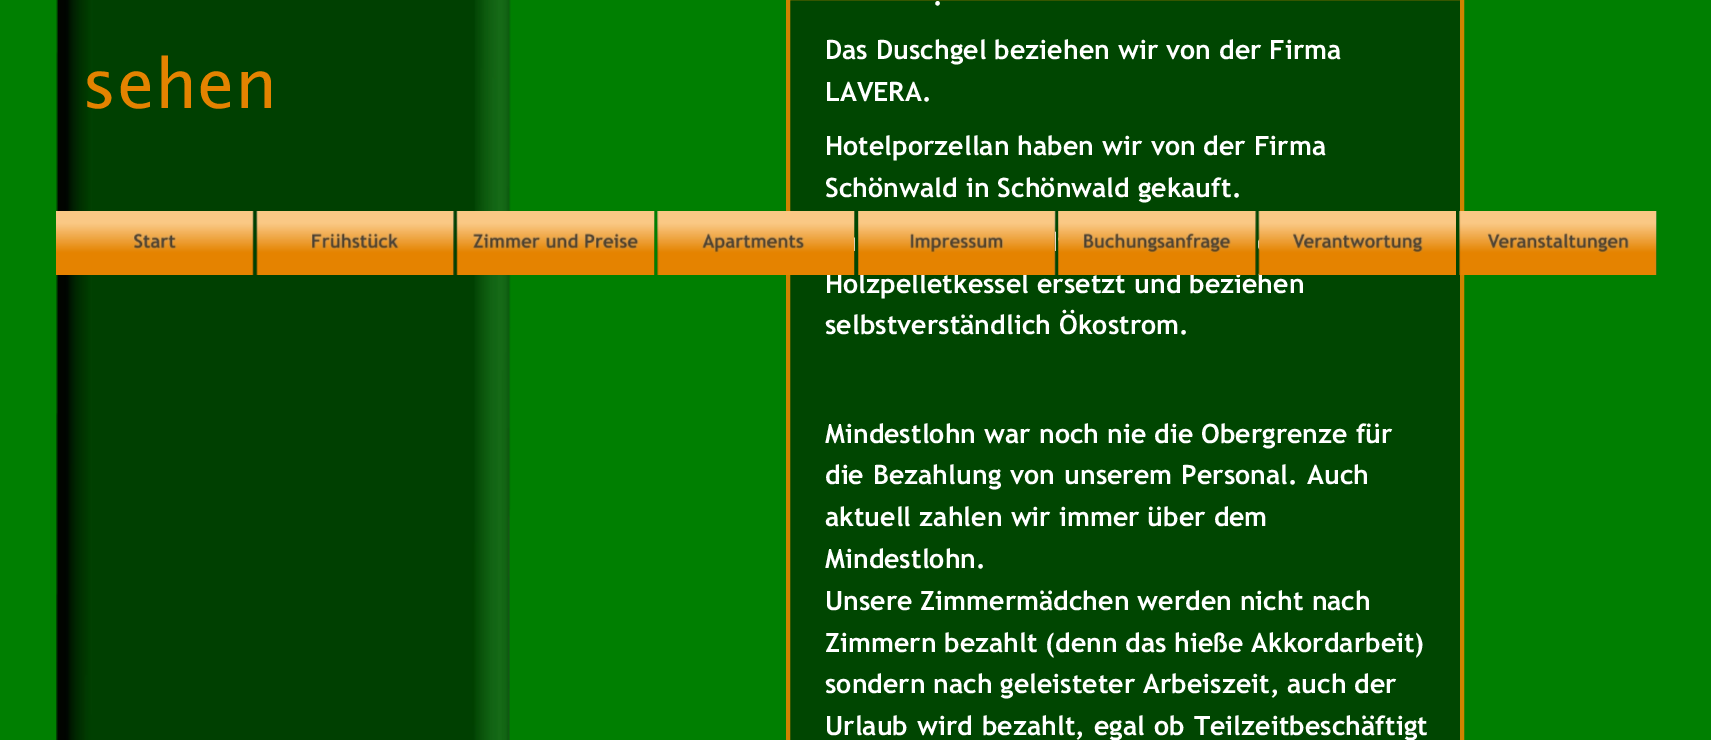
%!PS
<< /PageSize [1711 740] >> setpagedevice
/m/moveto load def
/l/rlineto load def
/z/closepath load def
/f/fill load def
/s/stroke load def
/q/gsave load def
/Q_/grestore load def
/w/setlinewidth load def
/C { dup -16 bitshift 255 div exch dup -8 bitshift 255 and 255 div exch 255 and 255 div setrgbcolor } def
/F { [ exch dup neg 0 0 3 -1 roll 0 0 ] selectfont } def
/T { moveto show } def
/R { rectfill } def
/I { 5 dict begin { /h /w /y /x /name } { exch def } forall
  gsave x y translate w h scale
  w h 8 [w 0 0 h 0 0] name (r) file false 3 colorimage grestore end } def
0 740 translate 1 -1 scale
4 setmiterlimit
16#007F01 C
0 0 1711 740 R
(1.rgb) 56 0 455 740 I
16#004601 C
788 -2 m 674 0 l 0 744 l -674 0 l z q f Q_
16#CF8300 C
4 w
s
/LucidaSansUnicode-Regular 68 F
16#E48300 C
(sehen) 82 108 T
/TrebuchetMS-Bold 26.7 F
16#FFFFFF C
(.) 933 5 T
(Das Duschgel beziehen wir von der Firma) 825 59 T
(LAVERA.) 825 101 T
(Hotelporzellan haben wir von der Firma) 825 155 T
(Schönwald in Schönwald gekauft.) 825 197 T
(Holzpelletkessel ersetzt und beziehen) 825 293 T
(selbstverständlich Ökostrom.) 825 334 T
(Mindestlohn war noch nie die Obergrenze für) 825 443 T
825 484 m 1 0 32 (die Bezahlung von unserem Personal. Auch) widthshow
(aktuell zahlen wir immer über dem) 825 526 T
(Mindestlohn.) 825 568 T
(Unsere Zimmermädchen werden nicht nach) 825 610 T
825 652 m -.25 0 32 (Zimmern bezahlt \(denn das hieße Akkordarbeit\)) widthshow
825 693 m -.25 0 32 (sondern nach geleisteter Arbeiszeit, auch der) widthshow
825 735 m 1 0 32 (Urlaub wird bezahlt, egal ob Teilzeitbeschäftigt) widthshow
(10.rgb) 252 211 2 64 I
(2.rgb) 56 211 198 64 I
(11.rgb) 256 211 199 64 I
(3.rgb) 256 211 199 64 I
(12.rgb) 456 211 199 64 I
(4.rgb) 456 211 199 64 I
(13.rgb) 657 211 198 64 I
(5.rgb) 657 211 198 64 I
(14.rgb) 858 211 198 64 I
(6.rgb) 858 211 198 64 I
(15.rgb) 1058 211 199 64 I
(7.rgb) 1058 211 199 64 I
(16.rgb) 1258 211 2 64 I
(8.rgb) 1258 211 198 64 I
(17.rgb) 1459 211 198 64 I
(9.rgb) 1459 211 198 64 I
showpage
